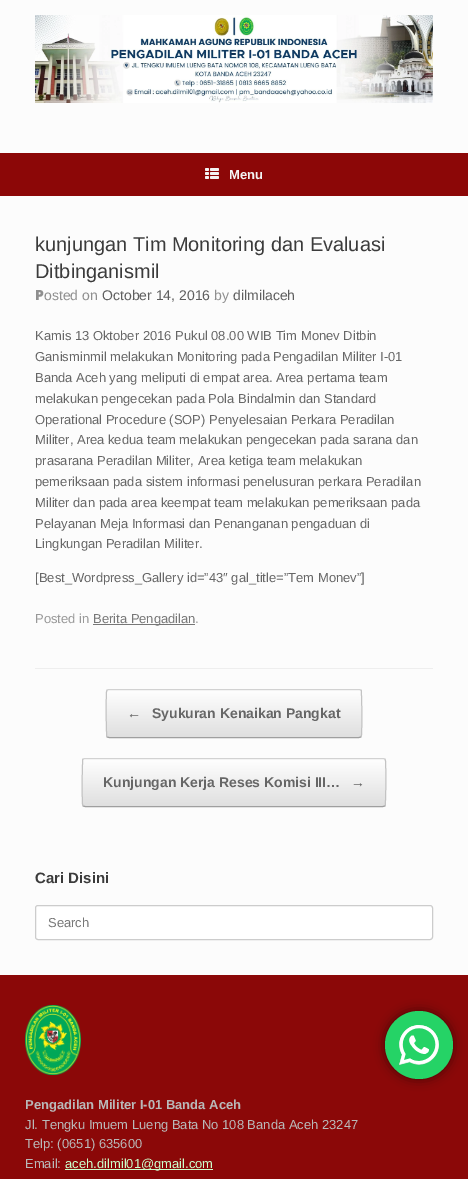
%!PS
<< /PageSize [468 1179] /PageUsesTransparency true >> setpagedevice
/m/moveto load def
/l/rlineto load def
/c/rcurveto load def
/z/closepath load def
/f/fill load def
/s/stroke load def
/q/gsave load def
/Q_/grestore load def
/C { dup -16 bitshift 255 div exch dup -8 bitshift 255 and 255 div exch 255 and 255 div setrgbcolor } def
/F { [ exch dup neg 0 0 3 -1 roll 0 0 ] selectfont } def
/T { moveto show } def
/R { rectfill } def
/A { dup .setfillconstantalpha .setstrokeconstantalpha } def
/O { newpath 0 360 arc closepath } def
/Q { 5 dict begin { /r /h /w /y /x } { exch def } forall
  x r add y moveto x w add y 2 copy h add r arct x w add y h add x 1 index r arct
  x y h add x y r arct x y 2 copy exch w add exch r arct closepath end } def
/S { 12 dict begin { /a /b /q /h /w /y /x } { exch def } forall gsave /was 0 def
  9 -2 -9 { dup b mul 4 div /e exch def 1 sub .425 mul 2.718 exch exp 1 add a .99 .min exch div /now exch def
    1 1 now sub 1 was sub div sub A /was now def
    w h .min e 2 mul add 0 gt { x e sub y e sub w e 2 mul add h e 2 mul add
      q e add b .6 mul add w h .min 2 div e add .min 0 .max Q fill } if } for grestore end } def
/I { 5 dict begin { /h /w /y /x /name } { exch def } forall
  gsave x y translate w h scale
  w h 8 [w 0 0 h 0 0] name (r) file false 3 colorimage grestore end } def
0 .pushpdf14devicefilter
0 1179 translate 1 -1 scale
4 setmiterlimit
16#FCFCFC C
0 0 468 1179 R
(1.rgb) 35 15 398 88 I
16#8C0707 C
0 153 468 43 R
(2.rgb) 205 168 14 11 I
/LiberationSans-Bold 13 F
16#F4F4F4 C
(Menu) 229 179 T
16#EEEEEE C
35 668 398 1 R
/LiberationSans-Regular 20 F
16#3B3B3B C
(kunjungan Tim Monitoring dan Evaluasi) 35 251 T
(Ditbinganismil) 35 278 T
/NotoSans-Black 14 F
16#8F8F8F C
(P) 35 300 T
/LiberationSans-Regular 14 F
(osted on) 44 300 T
16#5E5E5E C
(October 14, 2016) 102 300 T
16#8F8F8F C
(by) 214 300 T
16#5E5E5E C
(dilmilaceh) 233 300 T
/LiberationSans-Regular 13 F
16#666666 C
(Kamis 13 Oktober 2016 Pukul 08.00 WIB Tim Monev Ditbin) 35 340 T
(Ganisminmil melakukan Monitoring pada Pengadilan Militer I-01) 35 361 T
(Banda Aceh yang meliputi di empat area. Area pertama team) 35 382 T
(melakukan pengecekan pada Pola Bindalmin dan Standard) 35 403 T
(Operational Procedure \(SOP\) Penyelesaian Perkara Peradilan) 35 424 T
(Militer, Area kedua team melakukan pengecekan pada sarana dan) 35 444 T
(prasarana Peradilan Militer, Area ketiga team melakukan) 35 465 T
(pemeriksaan pada sistem informasi penelusuran perkara Peradilan) 35 486 T
(Militer dan pada area keempat team melakukan pemeriksaan pada) 35 507 T
(Pelayanan Meja Informasi dan Penanganan pengaduan di) 35 528 T
(Lingkungan Peradilan Militer.) 35 548 T
([Best_Wordpress_Gallery id=”43″ gal_title=”Tem Monev”]) 35 582 T
16#999999 C
(Posted in) 35 623 T
16#777777 C
93 624 102 1 R
(Berita Pengadilan) 93 623 T
16#999999 C
(.) 195 623 T
q
106 689 256 49 3 Q clip newpath
q 106 690 m 256 0 l 0 47 l -256 0 l z clip newpath
<< /ShadingType 2 /ColorSpace /DeviceRGB /Coords [107 737 107 690] /Extend [true true] /Function << /FunctionType 2 /Domain [0 1] /C0 [.875 .875 .875] /C1 [1 1 1] /N 1 >> >> shfill Q_
Q_
16#D2D2D2 C
107 690 m 2 -.5 l 250 0 l 2 .5 l s
16#C3C3C3 C
361 690 m 1 1.5 1 41 .5 45 c -.5 2 l s
16#9F9F9F C
361 737 m -2 .5 l -250 0 l -2 -.5 l s
16#C3C3C3 C
107 737 m -1 -1.5 -1 -41 -.5 -45 c .5 -2 l s
/LiberationSans-Bold 14 F
16#666666 C
(←) 127 718 T
(Syukuran Kenaikan Pangkat) 152 718 T
q
82 758 304 49 3 Q clip newpath
q 82 759 m 304 0 l 0 47 l -304 0 l z clip newpath
<< /ShadingType 2 /ColorSpace /DeviceRGB /Coords [83 806 83 759] /Extend [true true] /Function << /FunctionType 2 /Domain [0 1] /C0 [.875 .875 .875] /C1 [1 1 1] /N 1 >> >> shfill Q_
Q_
16#D2D2D2 C
83 759 m 2 -.5 l 298 0 l 2 .5 l s
16#C3C3C3 C
385 759 m .5 2 l .5 4 .5 43.5 -.5 45 c s
16#9F9F9F C
385 806 m -2 .5 l -298 0 l -2 -.5 l s
16#C3C3C3 C
83 806 m -.5 -2 l -.5 -4 -.5 -43.5 .5 -45 c s
16#666666 C
(Kunjungan Kerja Reses Komisi III…) 103 787 T
(→) 351 787 T
/LiberationSans-Bold 15 F
16#3B3B3B C
(Cari Disini) 35 883 T
16#FFFFFF C
35.5 905.5 397 34 2.5 Q q f Q_
16#CCCCCC C
s
/LiberationSans-Regular 13 F
16#777777 C
(Search) 48 927 T
16#8B0808 C
0 975 468 204 R
(3.rgb) 25 1005 56 70 I
/LiberationSans-Bold 13 F
16#B9B9B9 C
(Pengadilan Militer I-01 Banda Aceh) 25 1109 T
/LiberationSans-Regular 13 F
(Jl. Tengku Imuem Lueng Bata No 108 Banda Aceh 23247) 25 1129 T
(Telp: \(0651\) 635600) 25 1148 T
(Email:) 25 1168 T
16#CCFFCC C
65 1169 148 1 R
(aceh.dilmil01@gmail.com) 65 1168 T
16#000000 C
385 1011 68 68 34 5.5 .5 S
16#25D366 C
419 1045 34 O f
(4.rgb) 399 1025 40 40 I
.poppdf14devicefilter showpage
